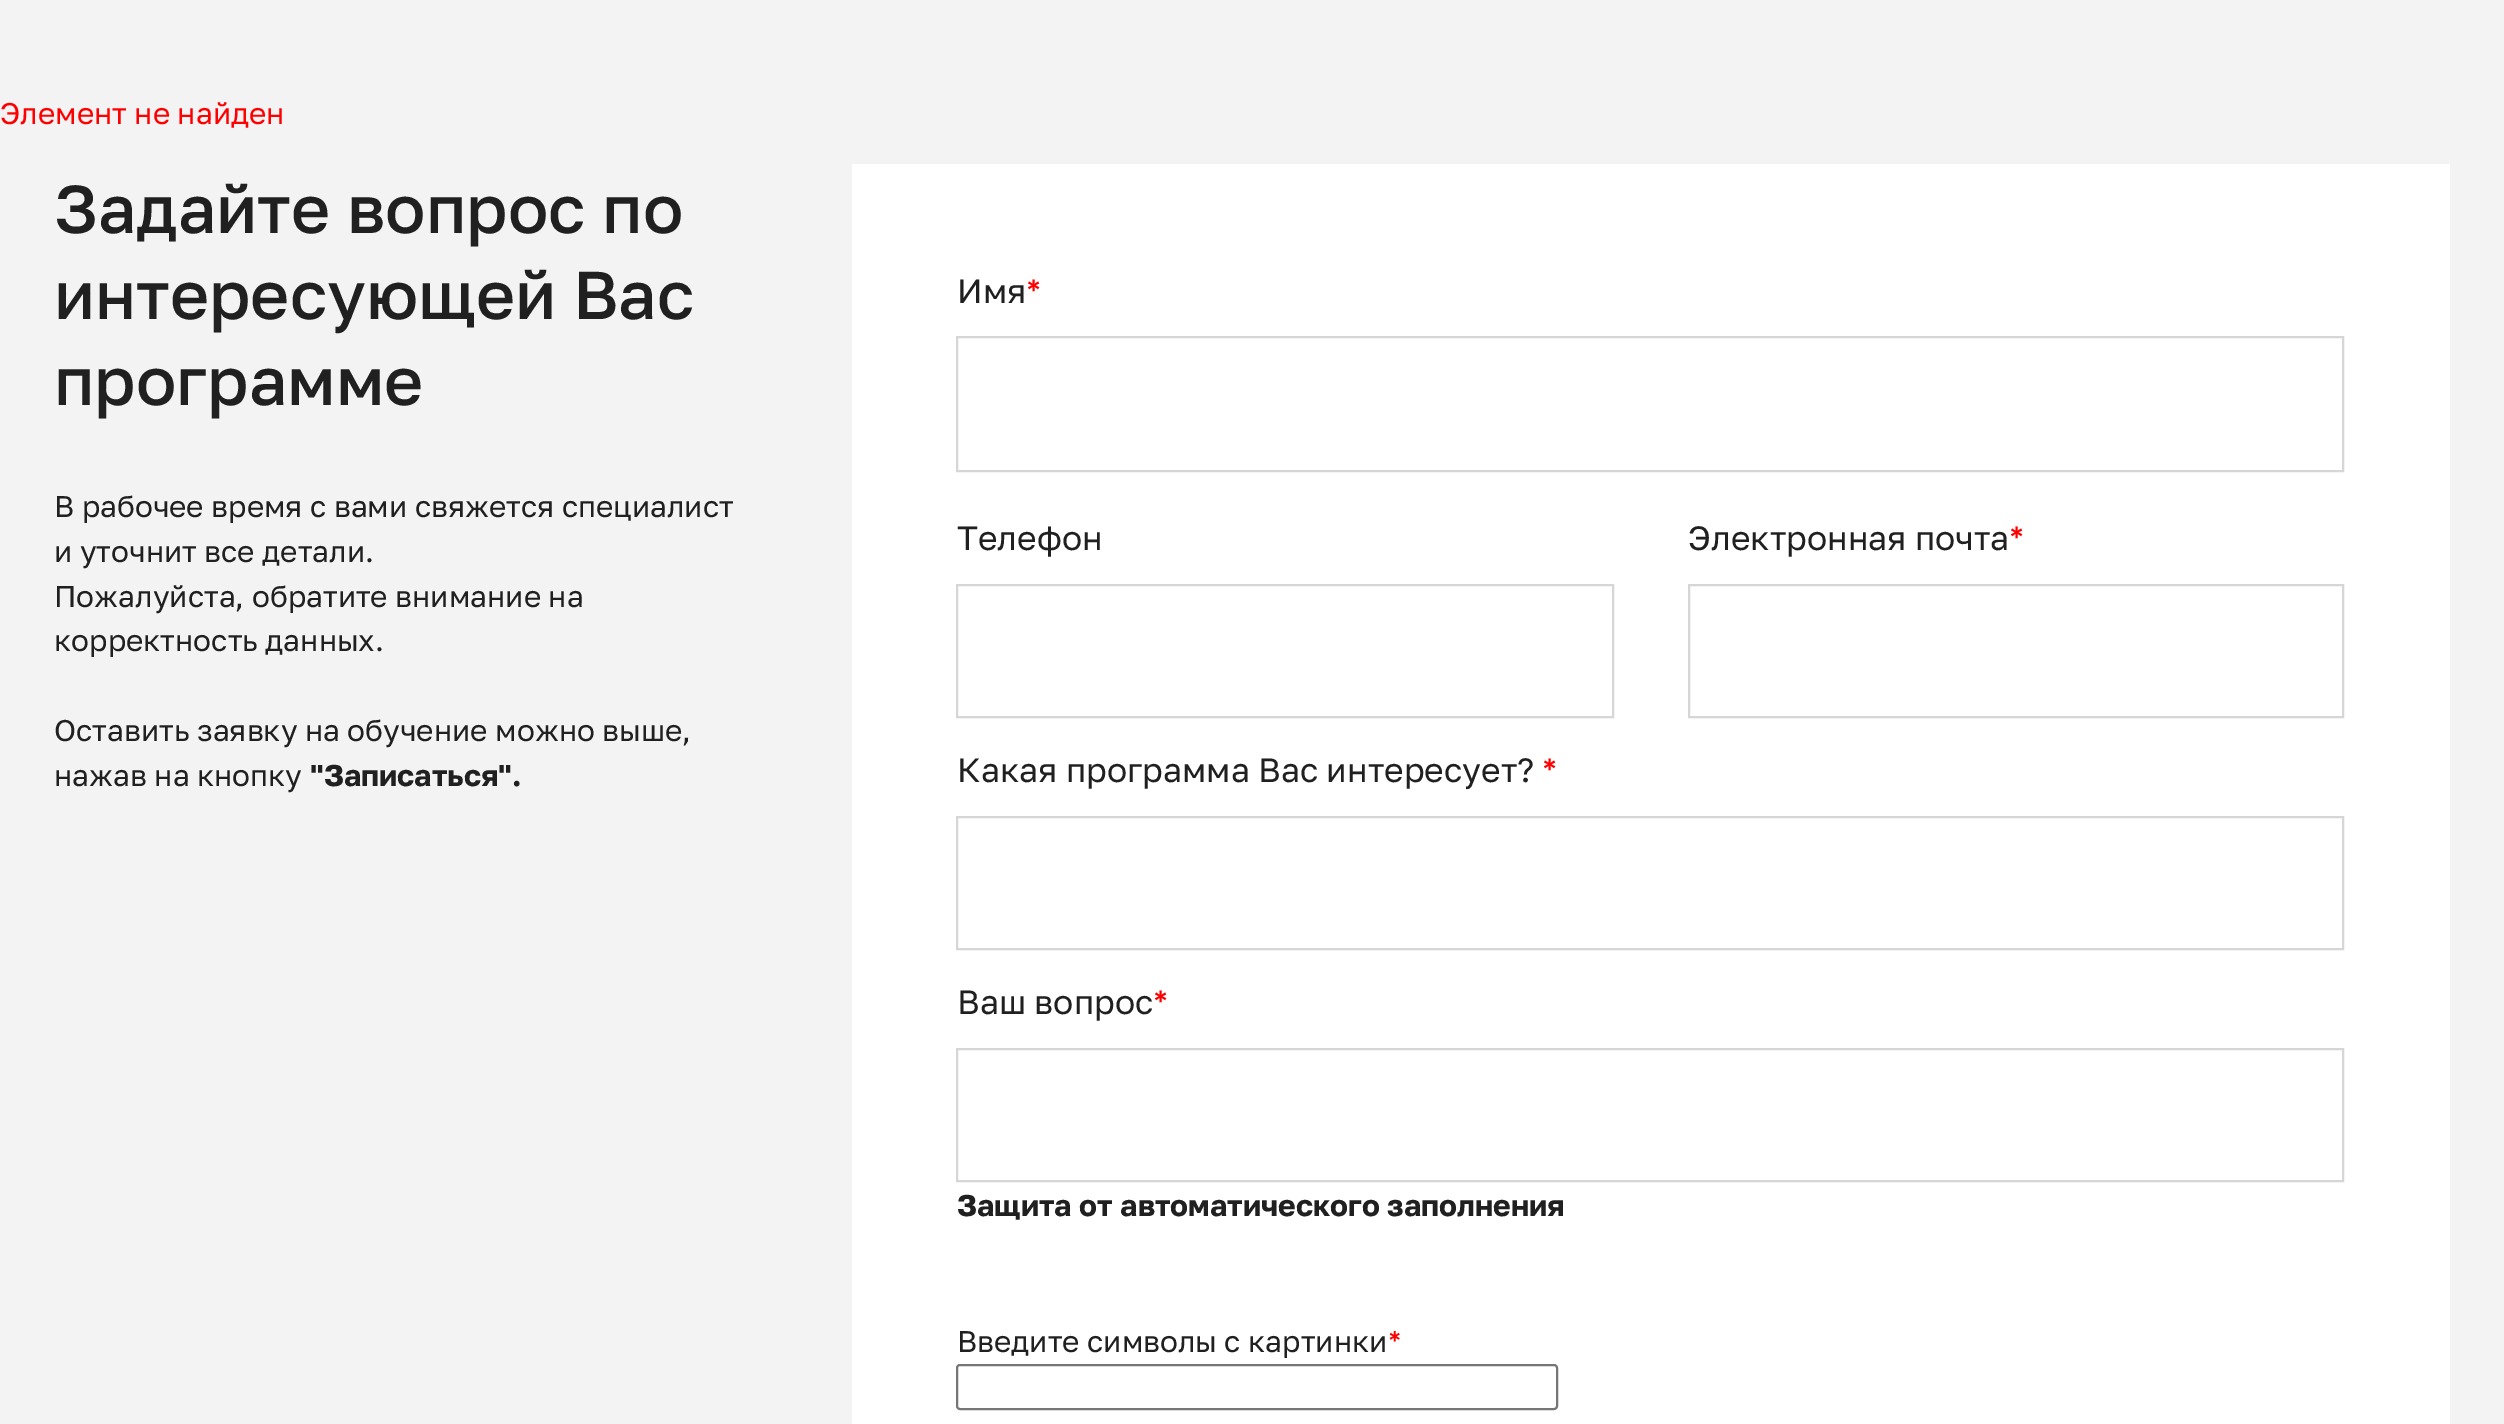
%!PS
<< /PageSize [2504 1424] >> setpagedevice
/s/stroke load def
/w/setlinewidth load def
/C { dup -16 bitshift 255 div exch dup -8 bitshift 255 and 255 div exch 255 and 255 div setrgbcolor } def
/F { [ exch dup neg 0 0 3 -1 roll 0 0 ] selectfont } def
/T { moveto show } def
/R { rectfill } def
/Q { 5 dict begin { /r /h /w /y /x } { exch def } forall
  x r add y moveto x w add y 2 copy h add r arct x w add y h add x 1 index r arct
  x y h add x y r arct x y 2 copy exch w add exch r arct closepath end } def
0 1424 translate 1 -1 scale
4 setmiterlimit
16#F3F3F4 C
0 0 2504 1424 R
/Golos-Regular 29.9 F
16#FF0000 C
(Элемент не найден) 0 124 T
/Golos-Medium 67.4 F
16#202020 C
(Задайте вопрос по) 54 233 T
(интересующей Вас) 54 319 T
(программе) 54 405 T
/Golos-Regular 29.9 F
(В рабочее время с вами свяжется специалист) 54 517 T
(и уточнит все детали.) 54 562 T
(Пожалуйста, обратите внимание на) 54 607 T
(корректность данных.) 54 651 T
(Оставить заявку на обучение можно выше,) 54 741 T
(нажав на кнопку) 54 786 T
/Golos-Bold 29.9 F
("Записаться".) 310 786 T
16#FFFFFF C
852 164 1598 1260 R
/Golos-Regular 33.7 F
16#202020 C
(Имя) 957 303 T
16#FF0000 C
(*) 1026 303 T
16#D6D6D6 C
2 w
957 337 1386 134 rectstroke
16#202020 C
(Телефон) 957 550 T
16#D6D6D6 C
957 585 656 132 rectstroke
16#202020 C
(Электронная почта) 1688 550 T
16#FF0000 C
(*) 2009 550 T
16#D6D6D6 C
1689 585 654 132 rectstroke
16#202020 C
(Какая программа Вас интересует?) 957 782 T
16#FF0000 C
(*) 1542 782 T
16#D6D6D6 C
957 817 1386 132 rectstroke
16#202020 C
(Ваш вопрос) 957 1014 T
16#FF0000 C
(*) 1153 1014 T
16#D6D6D6 C
957 1049 1386 132 rectstroke
/Golos-Bold 29.9 F
16#202020 C
(Защита от автоматического заполнения) 957 1216 T
/Golos-Regular 29.9 F
(Введите символы с картинки) 957 1352 T
16#FF0000 C
(*) 1388 1352 T
16#767676 C
957 1365 600 44 3 Q s
showpage
